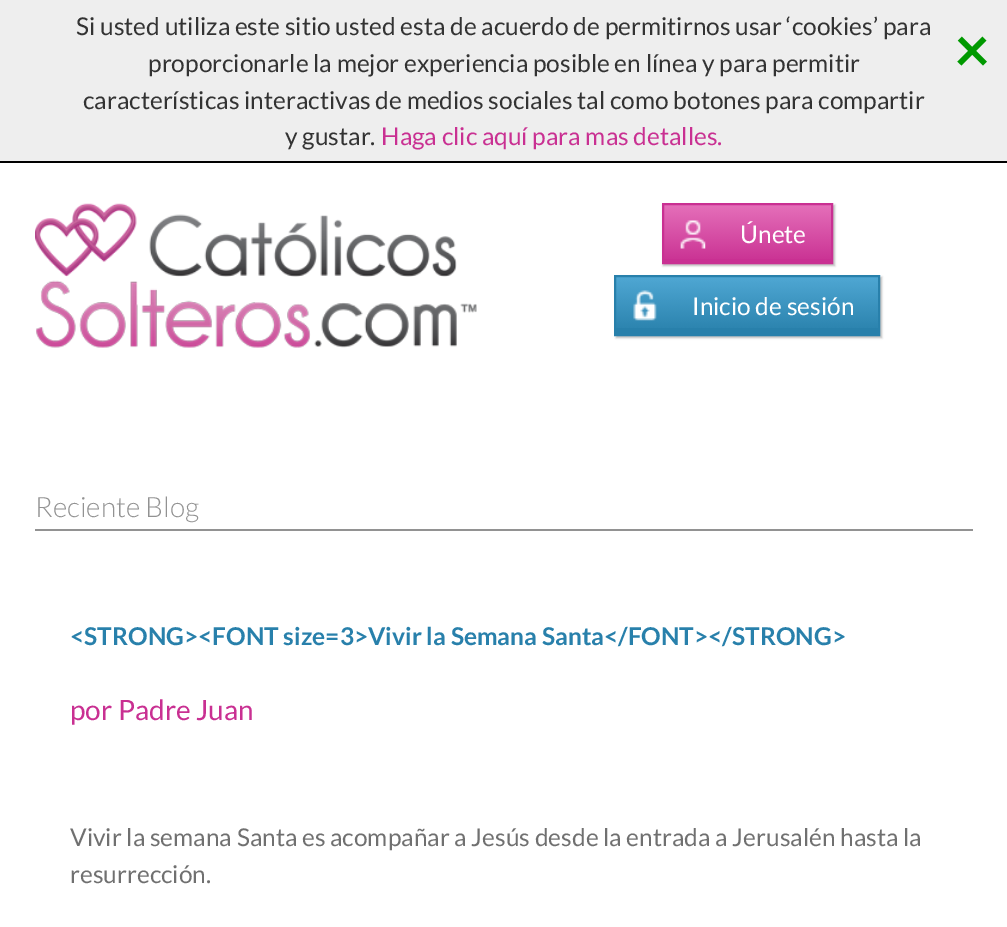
%!PS
<< /PageSize [1007 927] /PageUsesTransparency true >> setpagedevice
/w/setlinewidth load def
/C { dup -16 bitshift 255 div exch dup -8 bitshift 255 and 255 div exch 255 and 255 div setrgbcolor } def
/F { [ exch dup neg 0 0 3 -1 roll 0 0 ] selectfont } def
/T { moveto show } def
/R { rectfill } def
/A { dup .setfillconstantalpha .setstrokeconstantalpha } def
/Q { 5 dict begin { /r /h /w /y /x } { exch def } forall
  x r add y moveto x w add y 2 copy h add r arct x w add y h add x 1 index r arct
  x y h add x y r arct x y 2 copy exch w add exch r arct closepath end } def
/S { 12 dict begin { /a /b /q /h /w /y /x } { exch def } forall gsave /was 0 def
  9 -2 -9 { dup b mul 4 div /e exch def 1 sub .425 mul 2.718 exch exp 1 add a .99 .min exch div /now exch def
    1 1 now sub 1 was sub div sub A /was now def
    w h .min e 2 mul add 0 gt { x e sub y e sub w e 2 mul add h e 2 mul add
      q e add b .6 mul add w h .min 2 div e add .min 0 .max Q fill } if } for grestore end } def
/I { 5 dict begin { /h /w /y /x /name } { exch def } forall
  gsave x y translate w h scale
  w h 8 [w 0 0 h 0 0] name (r) file false 3 colorimage grestore end } def
0 .pushpdf14devicefilter
0 927 translate 1 -1 scale
4 setmiterlimit
16#FFFFFF C
0 0 1007 927 R
16#EEEEEE C
0 0 1007 161 R
16#000000 C
0 161 1007 2 R
/Lato-Regular 24.5 F
16#333333 C
(Si usted utiliza este sitio usted esta de acuerdo de permitirnos usar ‘cookies’ para) 76 35 T
(proporcionarle la mejor experiencia posible en línea y para permitir) 148 72 T
(características interactivas de medios sociales tal como botones para compartir) 83 109 T
(y gustar.) 285 145 T
16#C93092 C
(Haga clic aquí para mas detalles.) 381 145 T
/Lato-Bold 63 F
16#009900 C
(×) 954 72 T
(1.rgb) 35 203 442 145 I
16#000000 C
663 205 172 61 0 1 .25 S
(2.rgb) 664 205 167 54 I
16#C93092 C
664 259 167 3 R
2 w
663 204 169 59 rectstroke
/Lato-Regular 24.5 F
16#FFFFFF C
(Únete) 740 243 T
16#000000 C
616 277 266 61 0 1 .25 S
(3.rgb) 616 277 262 51 I
16#2880AB C
616 328 262 6 R
615 276 264 59 rectstroke
16#FFFFFF C
(Inicio de sesión) 692 315 T
16#929292 C
35 529 938 2 R
/Lato-Light 28 F
(Reciente Blog) 35 517 T
/Lato-Bold 24.5 F
16#2880AB C
(<STRONG><FONT size=3>Vivir la Semana Santa</FONT></STRONG>) 70 645 T
/Lato-Regular 28 F
16#C93092 C
(por Padre Juan) 70 720 T
/Lato-Regular 24.5 F
16#707070 C
(Vivir la semana Santa es acompañar a Jesús desde la entrada a Jerusalén hasta la) 70 846 T
(resurrección.) 70 883 T
.poppdf14devicefilter showpage
